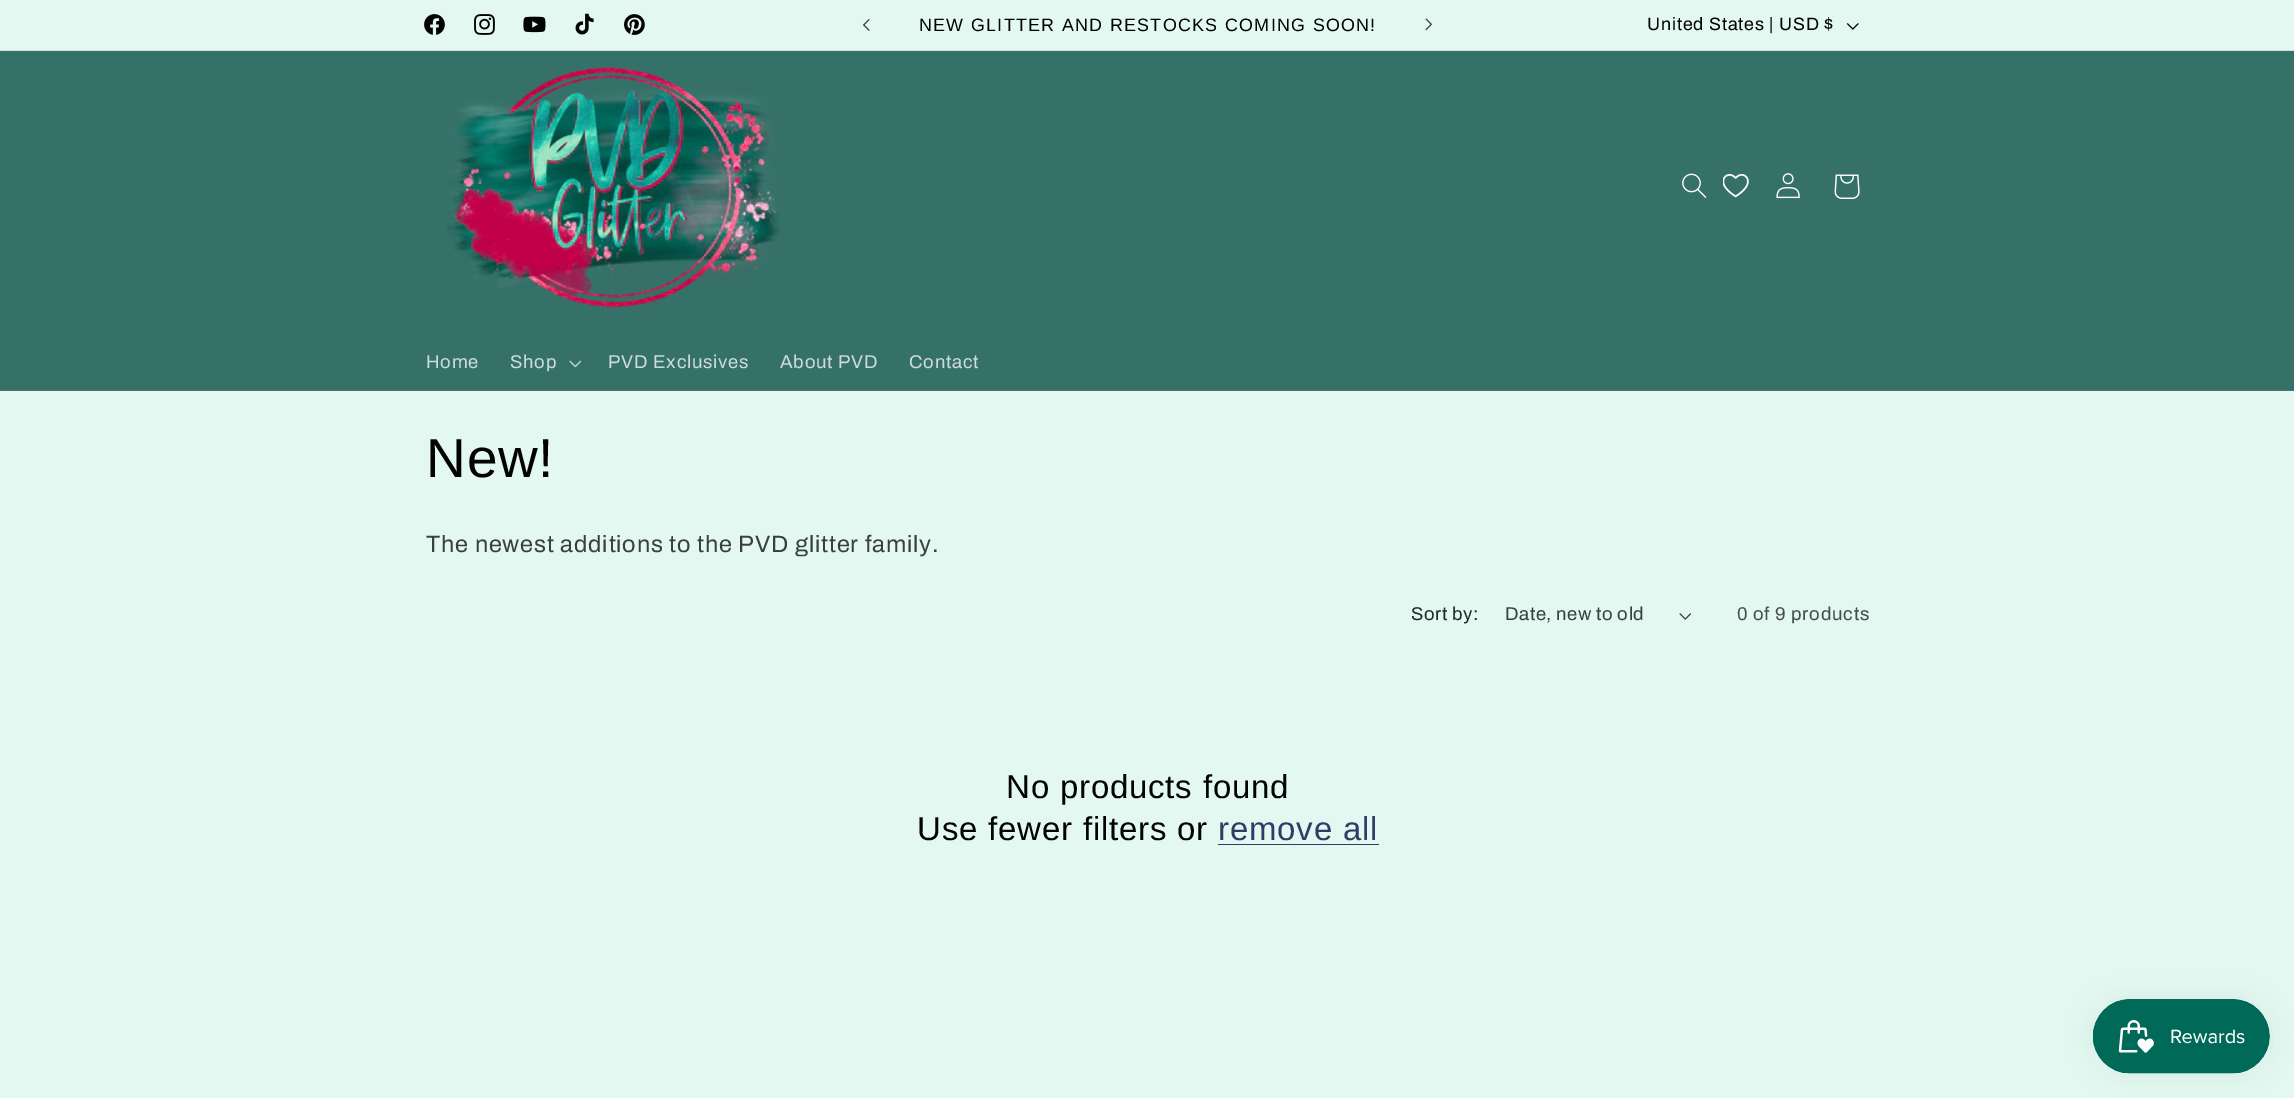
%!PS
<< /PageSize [2294 1098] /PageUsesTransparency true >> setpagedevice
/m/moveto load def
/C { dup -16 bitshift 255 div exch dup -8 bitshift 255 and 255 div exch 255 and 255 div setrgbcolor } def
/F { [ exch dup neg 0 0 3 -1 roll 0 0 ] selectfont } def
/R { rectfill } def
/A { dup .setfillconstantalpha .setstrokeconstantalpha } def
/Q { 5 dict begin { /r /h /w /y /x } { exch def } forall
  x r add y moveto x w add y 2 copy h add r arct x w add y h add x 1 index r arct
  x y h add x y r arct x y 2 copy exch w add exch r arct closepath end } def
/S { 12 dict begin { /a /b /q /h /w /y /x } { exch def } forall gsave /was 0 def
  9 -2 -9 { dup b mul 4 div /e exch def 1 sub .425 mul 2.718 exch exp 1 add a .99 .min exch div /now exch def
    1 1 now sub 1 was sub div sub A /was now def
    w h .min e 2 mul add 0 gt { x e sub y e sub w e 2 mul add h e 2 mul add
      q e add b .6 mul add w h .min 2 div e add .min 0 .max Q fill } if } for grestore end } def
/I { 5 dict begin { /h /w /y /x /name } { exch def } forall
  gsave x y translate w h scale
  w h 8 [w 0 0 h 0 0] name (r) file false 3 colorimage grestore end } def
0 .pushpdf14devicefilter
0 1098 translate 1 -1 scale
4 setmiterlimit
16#E2F8F1 C
0 0 2294 1098 R
16#D0E4DE C
0 50 2294 1 R
(1.rgb) 424 14 21 21 I
(2.rgb) 474 14 21 21 I
(3.rgb) 523 16 23 17 I
(4.rgb) 575 13 19 22 I
(5.rgb) 624 14 21 21 I
(6.rgb) 863 19 7 12 I
/Arimo-Regular 17.9 F
16#020202 C
919 31 m 1.3 0 (NEW GLITTER AND RESTOCKS COMING SOON!) ashow
(7.rgb) 1425 18 7 13 I
/Archivo-Regular 17.9 F
1647 30 m .8 0 (United States | USD $) ashow
(8.rgb) 1846 23 13 7 I
16#357168 C
0 51 2294 339 R
16#457C74 C
0 390 2294 1 R
(9.rgb) 447 67 333 241 I
(10.rgb) 1682 173 25 25 I
(11.rgb) 1723 174 26 24 I
(12.rgb) 1776 173 24 26 I
(13.rgb) 1834 174 26 25 I
/Archivo-Regular 18.5 F
16#CDDCD9 C
426 368 m .8 0 (Home) ashow
510 368 m .8 0 (Shop) ashow
(14.rgb) 569 360 12 8 I
608 368 m .8 0 (PVD Exclusives) ashow
780 368 m .8 0 (About PVD) ashow
909 368 m .8 0 (Contact) ashow
/Arimo-Regular 55 F
16#020202 C
426 477 m .8 0 (New!) ashow
/Archivo-Regular 23.6 F
16#3A403E C
426 552 m .8 0 (The newest additions to the PVD glitter family.) ashow
/Archivo-Regular 18.5 F
16#242726 C
1411 620 m .5 0 (Sort by:) ashow
16#3A403E C
1505 620 m .5 0 (Date, new to old) ashow
(15.rgb) 1679 613 12 7 I
16#454C4A C
1737 620 m .8 0 (0 of 9 products) ashow
/Arimo-Regular 33 F
16#020202 C
1006 798 m .8 0 (No products found) ashow
917 840 m .8 0 (Use fewer filters or) ashow
16#2E3C66 C
1218 840 m .8 0 (remove all) ashow
1218 844 161 1 R
16#000000 C
2093 999 177 75 37.5 15.5 .05 S
(16.rgb) 2092 999 178 75 I
.poppdf14devicefilter showpage
